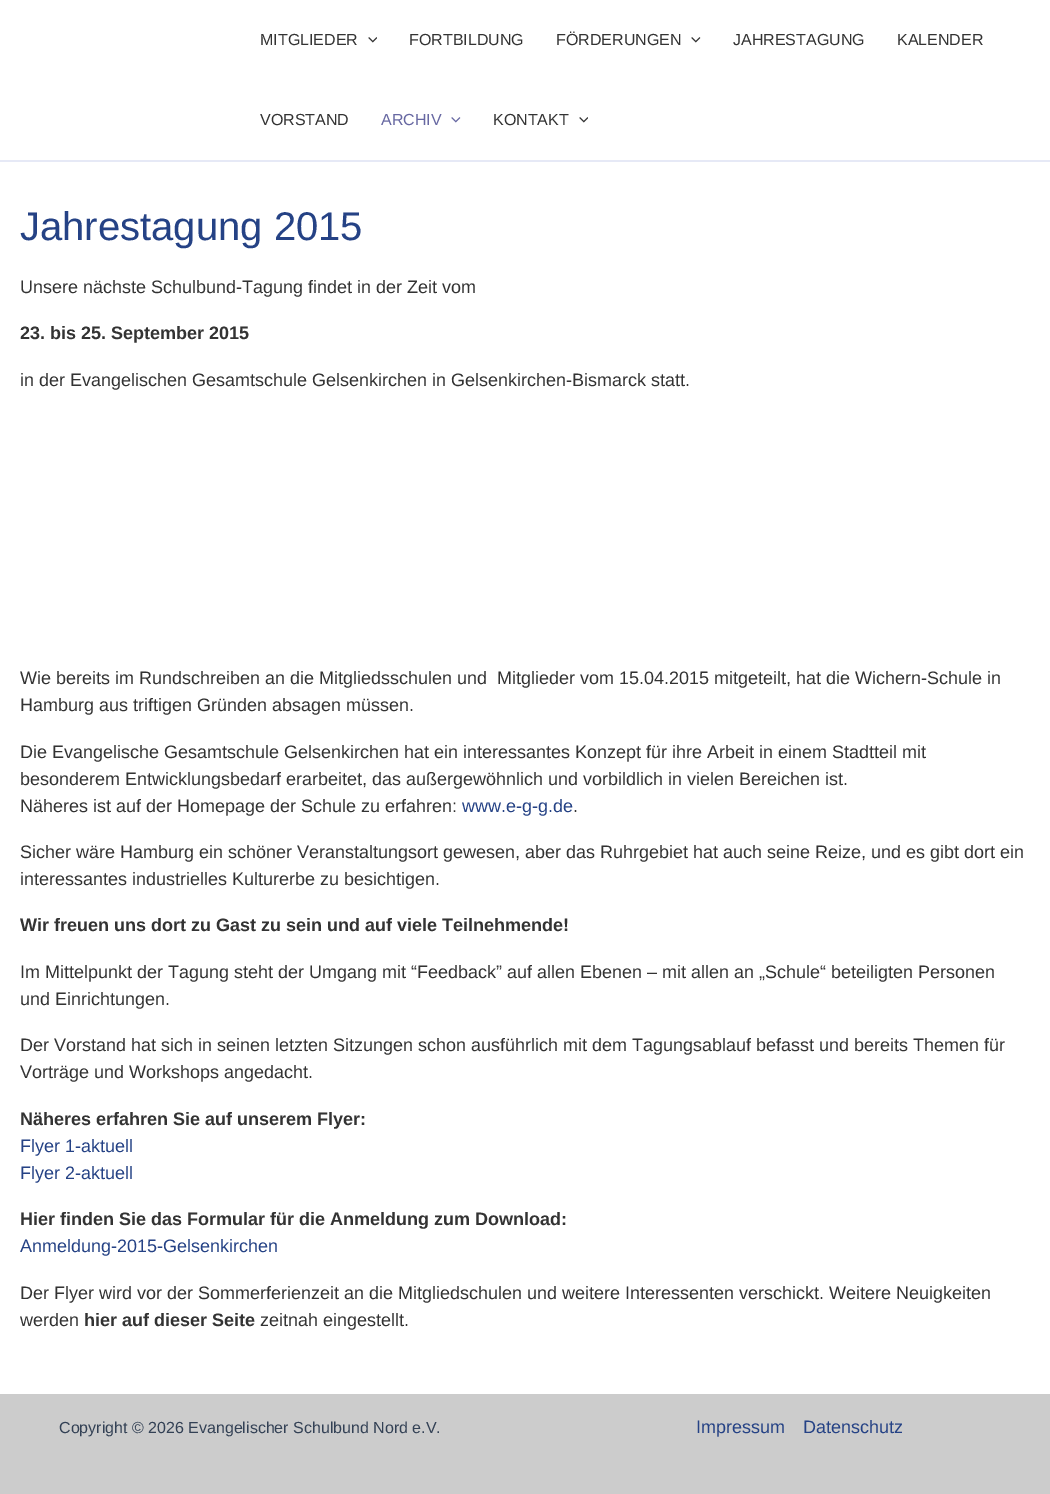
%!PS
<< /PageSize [1050 1494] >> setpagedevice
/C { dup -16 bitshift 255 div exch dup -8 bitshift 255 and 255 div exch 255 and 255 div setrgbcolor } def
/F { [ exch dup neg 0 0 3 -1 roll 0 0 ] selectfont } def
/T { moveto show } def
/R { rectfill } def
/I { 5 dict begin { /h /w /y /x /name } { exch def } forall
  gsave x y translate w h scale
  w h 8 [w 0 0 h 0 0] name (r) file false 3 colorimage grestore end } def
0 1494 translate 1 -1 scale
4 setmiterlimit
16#FFFFFF C
0 0 1050 1494 R
16#E6E9F6 C
0 160 1050 2 R
/LiberationSans-Regular 16 F
16#333333 C
(MITGLIEDER) 260 45 T
(1.rgb) 368 37 9 6 I
(FORTBILDUNG) 409 45 T
(FÖRDERUNGEN) 556 45 T
(2.rgb) 691 37 10 6 I
(JAHRESTAGUNG) 733 45 T
(KALENDER) 897 45 T
(VORSTAND) 260 125 T
16#6768A2 C
(ARCHIV) 381 125 T
(3.rgb) 451 117 10 6 I
16#333333 C
(KONTAKT) 493 125 T
(1.rgb) 579 117 9 6 I
/LiberationSans-Regular 40 F
16#254285 C
(Jahrestagung 2015) 20 240 T
/LiberationSans-Regular 18 F
16#333333 C
(Unsere nächste Schulbund-Tagung findet in der Zeit vom) 20 293 T
/LiberationSans-Bold 18 F
(23. bis 25. September 2015) 20 339 T
/LiberationSans-Regular 18 F
(in der Evangelischen Gesamtschule Gelsenkirchen in Gelsenkirchen-Bismarck statt.) 20 386 T
(Wie bereits im Rundschreiben an die Mitgliedsschulen und  Mitglieder vom 15.04.2015 mitgeteilt, hat die Wichern-Schule in) 20 684 T
(Hamburg aus triftigen Gründen absagen müssen.) 20 711 T
(Die Evangelische Gesamtschule Gelsenkirchen hat ein interessantes Konzept für ihre Arbeit in einem Stadtteil mit) 20 758 T
(besonderem Entwicklungsbedarf erarbeitet, das außergewöhnlich und vorbildlich in vielen Bereichen ist.) 20 785 T
(Näheres ist auf der Homepage der Schule zu erfahren:) 20 812 T
16#254285 C
(www.e-g-g.de) 462 812 T
16#333333 C
(.) 573 812 T
(Sicher wäre Hamburg ein schöner Veranstaltungsort gewesen, aber das Ruhrgebiet hat auch seine Reize, und es gibt dort ein) 20 858 T
(interessantes industrielles Kulturerbe zu besichtigen.) 20 885 T
/LiberationSans-Bold 18 F
(Wir freuen uns dort zu Gast zu sein und auf viele Teilnehmende!) 20 931 T
/LiberationSans-Regular 18 F
(Im Mittelpunkt der Tagung steht der Umgang mit “Feedback” auf allen Ebenen – mit allen an „Schule“ beteiligten Personen) 20 978 T
(und Einrichtungen.) 20 1005 T
(Der Vorstand hat sich in seinen letzten Sitzungen schon ausführlich mit dem Tagungsablauf befasst und bereits Themen für) 20 1051 T
(Vorträge und Workshops angedacht.) 20 1078 T
/LiberationSans-Bold 18 F
(Näheres erfahren Sie auf unserem Flyer:) 20 1125 T
/LiberationSans-Regular 18 F
16#254285 C
(Flyer 1-aktuell) 20 1152 T
(Flyer 2-aktuell) 20 1179 T
/LiberationSans-Bold 18 F
16#333333 C
(Hier finden Sie das Formular für die Anmeldung zum Download:) 20 1225 T
/LiberationSans-Regular 18 F
16#254285 C
(Anmeldung-2015-Gelsenkirchen) 20 1252 T
16#333333 C
(Der Flyer wird vor der Sommerferienzeit an die Mitgliedschulen und weitere Interessenten verschickt. Weitere Neuigkeiten) 20 1299 T
(werden) 20 1326 T
/LiberationSans-Bold 18 F
(hier auf dieser Seite) 84 1326 T
/LiberationSans-Regular 18 F
(zeitnah eingestellt.) 260 1326 T
16#CCCCCC C
0 1394 1050 100 R
/LiberationSans-Regular 16 F
16#334155 C
(Copyright © 2026 Evangelischer Schulbund Nord e.V.) 59 1433 T
/LiberationSans-Regular 18 F
16#254285 C
(Impressum) 696 1433 T
(Datenschutz) 803 1433 T
showpage
